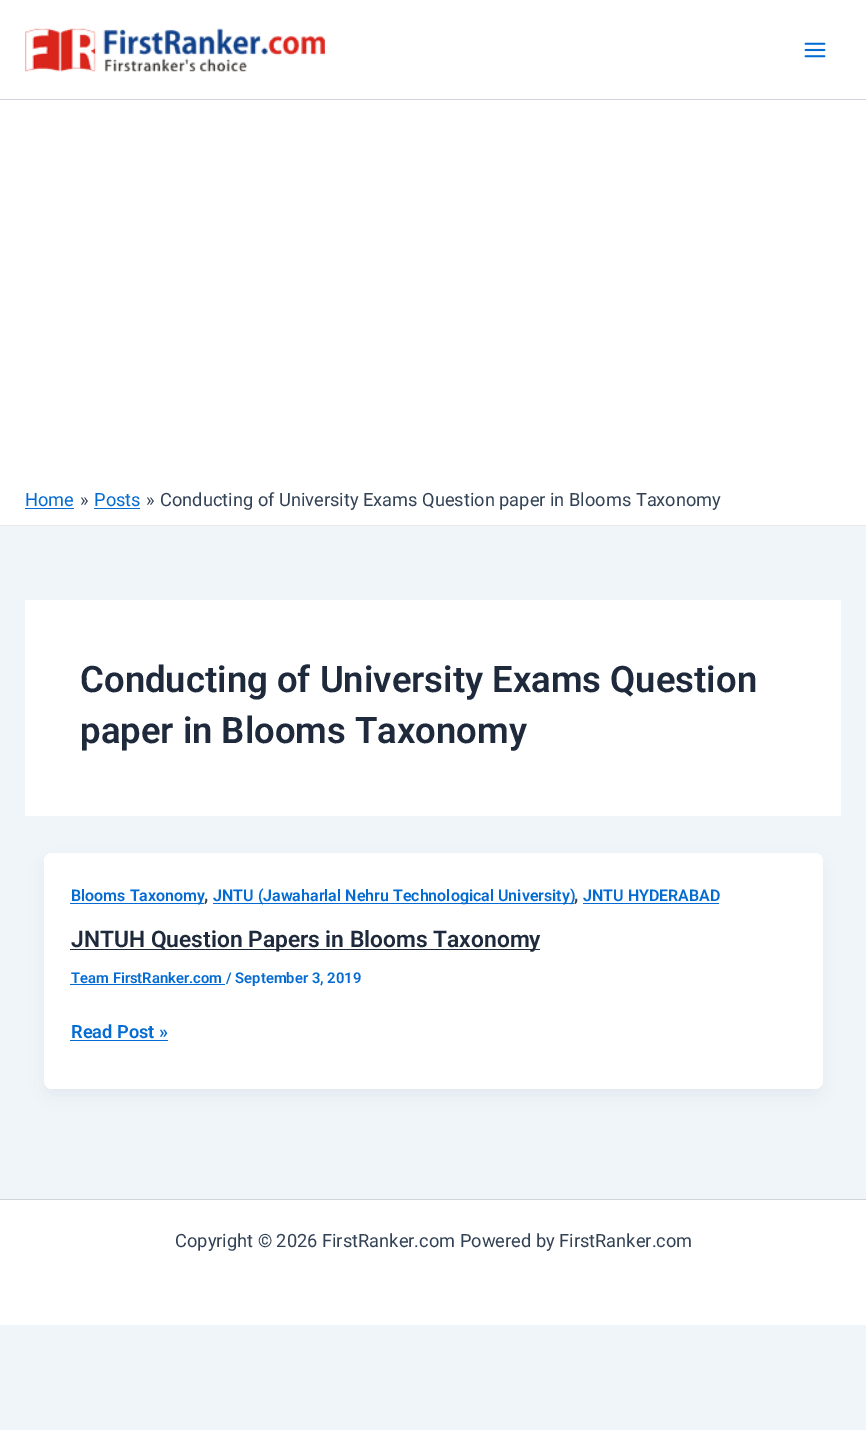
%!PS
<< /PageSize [866 1430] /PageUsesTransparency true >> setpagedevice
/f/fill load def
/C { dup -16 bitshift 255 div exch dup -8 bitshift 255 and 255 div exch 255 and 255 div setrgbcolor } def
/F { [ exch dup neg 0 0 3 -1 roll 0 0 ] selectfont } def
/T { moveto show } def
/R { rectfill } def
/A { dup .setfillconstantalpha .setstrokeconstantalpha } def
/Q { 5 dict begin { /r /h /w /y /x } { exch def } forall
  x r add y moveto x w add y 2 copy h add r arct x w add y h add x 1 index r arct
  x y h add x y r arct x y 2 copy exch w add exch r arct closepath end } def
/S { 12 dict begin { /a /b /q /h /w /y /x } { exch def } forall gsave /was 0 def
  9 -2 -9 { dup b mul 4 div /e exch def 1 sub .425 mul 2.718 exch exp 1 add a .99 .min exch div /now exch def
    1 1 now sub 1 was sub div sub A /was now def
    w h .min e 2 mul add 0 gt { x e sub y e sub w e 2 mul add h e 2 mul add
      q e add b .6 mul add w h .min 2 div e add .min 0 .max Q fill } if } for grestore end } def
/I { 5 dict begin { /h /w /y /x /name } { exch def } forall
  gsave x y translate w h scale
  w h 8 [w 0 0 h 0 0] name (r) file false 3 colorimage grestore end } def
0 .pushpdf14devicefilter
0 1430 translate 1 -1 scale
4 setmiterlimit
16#F0F5FA C
0 0 866 1430 R
16#FFFFFF C
0 0 866 99 R
16#D1D5DB C
0 99 866 1 R
(1.rgb) 25 28 300 44 I
(2.rgb) 804 42 22 16 I
16#FFFFFF C
0 100 866 425 R
16#EAEAEA C
0 525 866 1 R
/Roboto-Regular 18.25 F
16#046BD2 C
(Home) 25 506 T
25 508 49 1 R
16#334155 C
(») 80 506 T
16#046BD2 C
(Posts) 94 506 T
94 508 46 1 R
16#334155 C
(») 146 506 T
(Conducting of University Exams Question paper in Blooms Taxonomy) 160 506 T
16#FFFFFF C
25 600 816 216 R
/Roboto-SemiBold 36.5 F
16#1E293B C
(Conducting of University Exams Question) 80 692 T
(paper in Blooms Taxonomy) 80 743 T
16#101828 C
46 863 774 231 5 9.5 .05 S
16#FFFFFF C
44 853 779 236 8 Q f
16#046BD2 C
70 903 134 1 R
/Roboto-SemiBold 16 F
(Blooms Taxonomy) 71 901 T
/Roboto-SemiBold 18.25 F
16#334155 C
(,) 204 901 T
16#046BD2 C
213 903 361 1 R
/Roboto-SemiBold 16 F
(JNTU \(Jawaharlal Nehru Technological University\)) 213 901 T
/Roboto-SemiBold 18.25 F
16#334155 C
(,) 574 901 T
/Roboto-SemiBold 16 F
16#046BD2 C
(JNTU HYDERABAD) 583 901 T
583 903 136 1 R
16#1E293B C
70 949 470 1 R
/Roboto-SemiBold 22.8 F
(JNTUH Question Papers in Blooms Taxonomy) 71 947 T
16#046BD2 C
70 984 155 1 R
/Roboto-SemiBold 14.8 F
(Team FirstRanker.com / September 3, 2019) 71 983 T
/Roboto-SemiBold 18.25 F
(Read Post ») 71 1038 T
70 1040 98 1 R
16#FFFFFF C
0 1200 866 125 R
16#D1D5DB C
0 1199 866 1 R
/Roboto-Regular 18.25 F
16#334155 C
(Copyright © 2026 FirstRanker.com Powered by FirstRanker.com) 175 1247 T
.poppdf14devicefilter showpage
